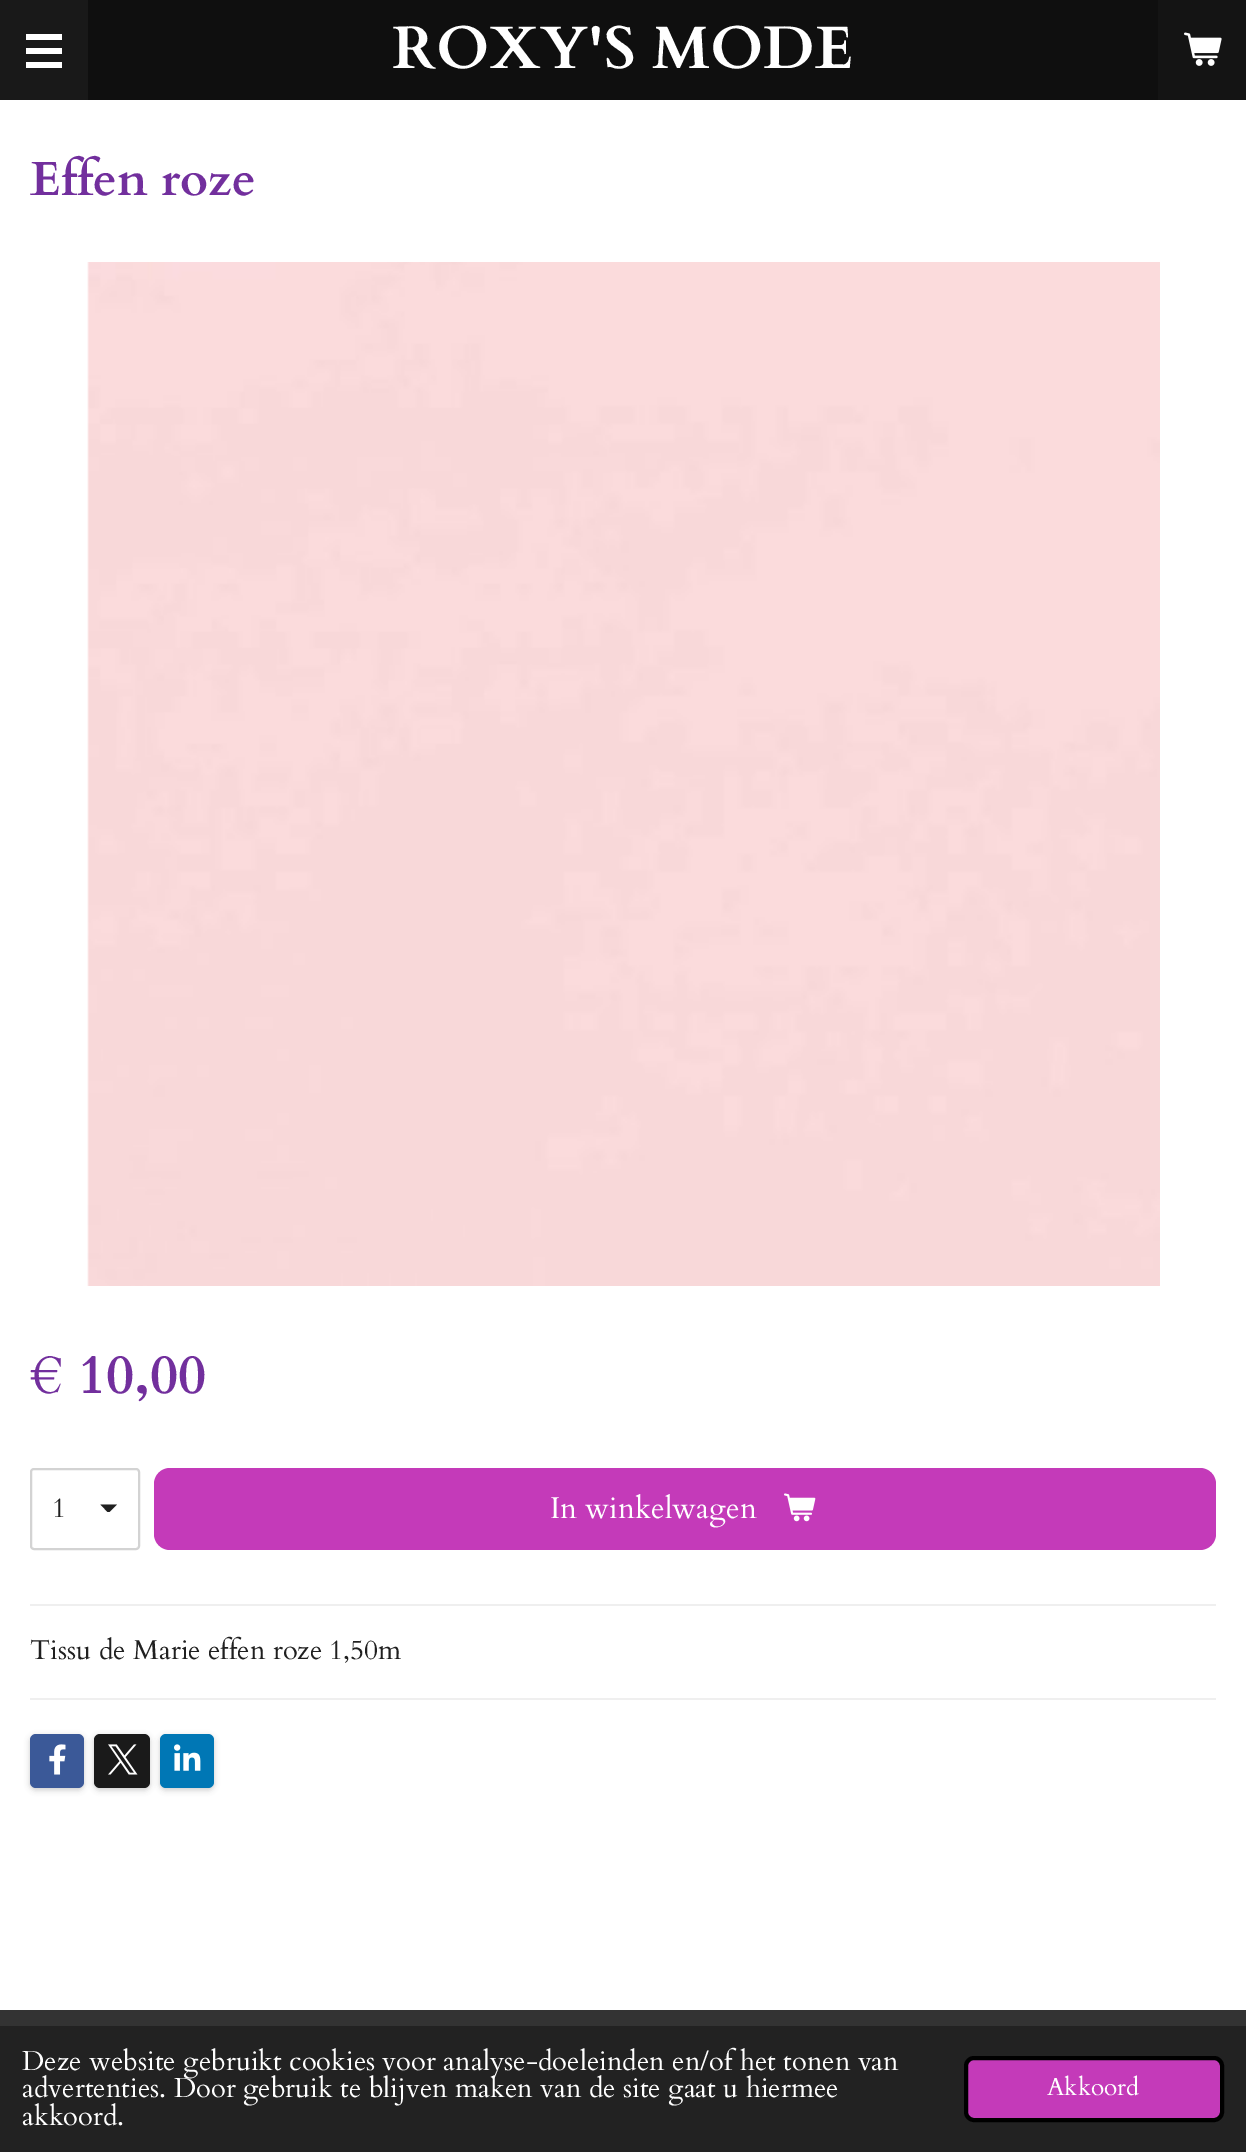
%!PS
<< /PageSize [1246 2152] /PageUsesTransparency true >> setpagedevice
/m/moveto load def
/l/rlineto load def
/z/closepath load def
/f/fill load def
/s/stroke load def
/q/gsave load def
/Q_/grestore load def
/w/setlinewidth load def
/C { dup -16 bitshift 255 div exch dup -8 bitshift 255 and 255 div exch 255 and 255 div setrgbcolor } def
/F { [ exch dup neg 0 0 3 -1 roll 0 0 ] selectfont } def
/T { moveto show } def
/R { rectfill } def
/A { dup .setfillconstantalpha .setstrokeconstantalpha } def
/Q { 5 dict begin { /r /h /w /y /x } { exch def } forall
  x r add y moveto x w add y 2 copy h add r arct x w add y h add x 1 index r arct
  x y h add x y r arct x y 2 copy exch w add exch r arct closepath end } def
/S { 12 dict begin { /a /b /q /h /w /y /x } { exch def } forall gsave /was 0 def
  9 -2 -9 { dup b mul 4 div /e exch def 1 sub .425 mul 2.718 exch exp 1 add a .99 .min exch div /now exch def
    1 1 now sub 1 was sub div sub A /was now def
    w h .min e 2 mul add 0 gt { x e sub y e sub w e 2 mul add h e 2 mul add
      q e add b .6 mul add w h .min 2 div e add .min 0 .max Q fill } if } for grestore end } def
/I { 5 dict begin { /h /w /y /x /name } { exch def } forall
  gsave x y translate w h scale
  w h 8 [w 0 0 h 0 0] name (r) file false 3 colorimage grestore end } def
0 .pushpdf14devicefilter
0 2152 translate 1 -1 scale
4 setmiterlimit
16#0F0F0F C
0 0 1246 2152 R
16#191919 C
0 0 88 100 R
16#FFFFFF C
26 48 36 6 R
26 34 36 6 R
26 62 36 6 R
/Cardo-Bold 60 F
(ROXY'S MODE) 392 68 T
16#141414 C
1158 0 88 100 R
(1.rgb) 1184 32 38 34 I
16#FFFFFF C
0 100 1246 1910 R
/Cardo-Bold 48 F
16#722F9D C
(Effen roze) 30 195 T
(2.rgb) 87 262 1073 1024 I
/Cardo-Bold 55 F
(€ 10,00) 30 1393 T
q
100 1504 18 8 rectclip
16#202020 C
108.5 1513 m -8 -8.5 l 16.5 0 l z f
Q_
16#D3D3D3 C
2 w
31 1469 108 80 3 Q s
/Cardo-Regular 27.4 F
16#202020 C
(1) 52 1517 T
16#C43AB9 C
154 1468 1062 82 16 Q f
/Cardo-Regular 30 F
16#FFFFFF C
(In winkelwagen) 550 1518 T
(3.rgb) 784 1493 32 29 I
16#EFEFEF C
30 1604 1186 2 R
/Cardo-Regular 27.4 F
16#202020 C
(Tissu de Marie effen roze 1,50m) 30 1659 T
16#EFEFEF C
30 1698 1186 2 R
16#000000 C
30 1736 54 54 6 3 .2 S
16#3B5998 C
30 1734 54 54 6 Q f
(4.rgb) 49 1744 17 31 I
16#000000 C
94 1736 56 54 6 3 .2 S
16#1A1A1A C
94 1734 56 54 6 Q f
(5.rgb) 108 1744 30 31 I
16#000000 C
160 1736 54 54 6 3 .2 S
16#0077B5 C
160 1734 54 54 6 Q f
(6.rgb) 174 1744 27 27 I
16#333333 C
0 2010 1246 16 R
16#222222 C
0 2026 1246 126 R
16#FFFFFF C
(Deze website gebruikt cookies voor analyse-doeleinden en/of het tonen van) 22 2070 T
(advertenties. Door gebruik te blijven maken van de site gaat u hiermee) 22 2097 T
(akkoord.) 22 2125 T
16#C43AB9 C
966 2058 256 62 8 Q q f Q_
16#000000 C
4 w
s
/Cardo-Regular 24.5 F
16#FFFFFF C
(Akkoord) 1047 2095 T
.poppdf14devicefilter showpage
